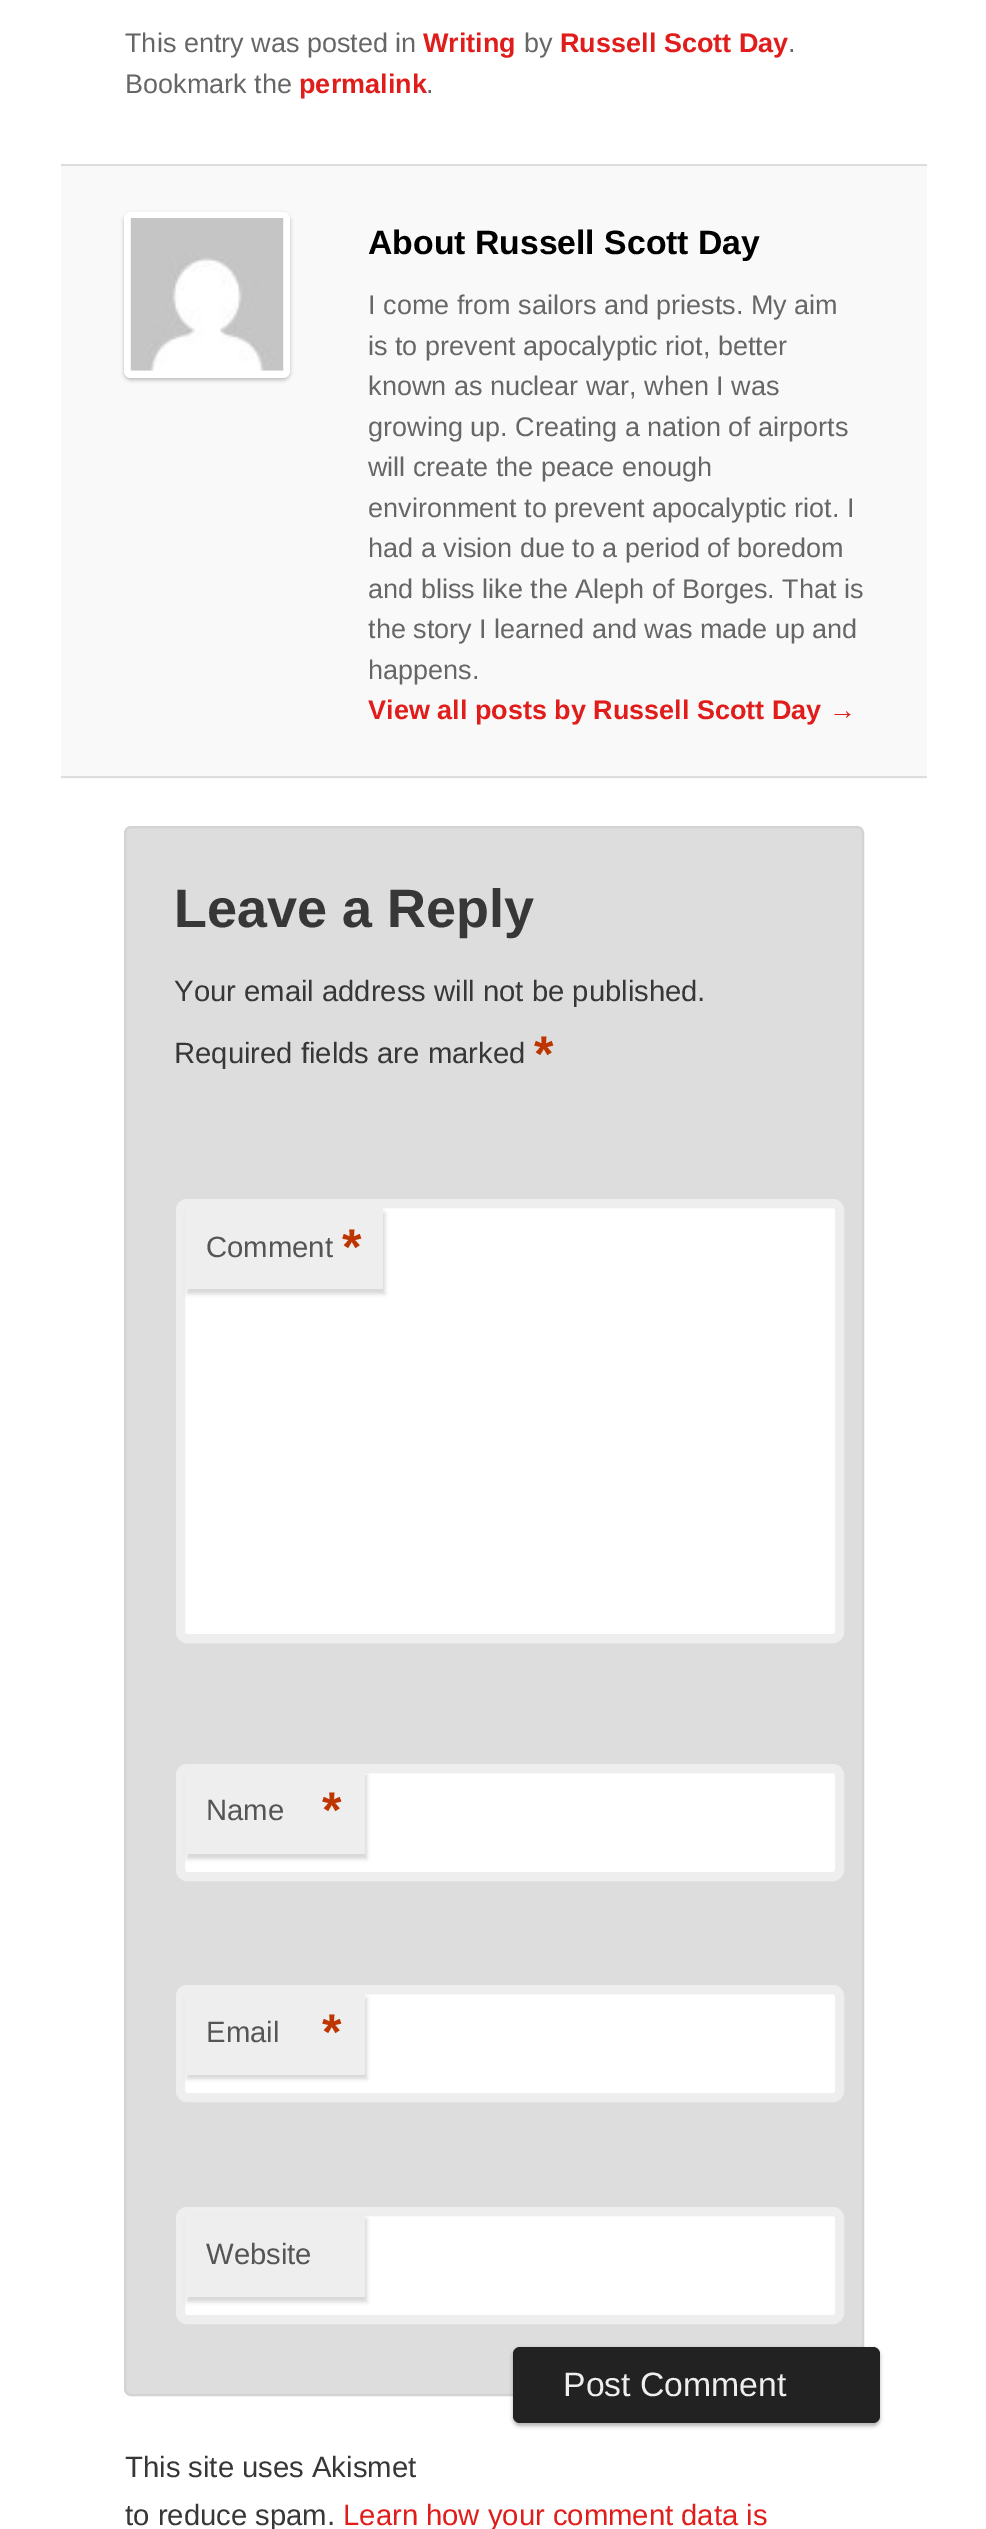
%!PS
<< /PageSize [986 2529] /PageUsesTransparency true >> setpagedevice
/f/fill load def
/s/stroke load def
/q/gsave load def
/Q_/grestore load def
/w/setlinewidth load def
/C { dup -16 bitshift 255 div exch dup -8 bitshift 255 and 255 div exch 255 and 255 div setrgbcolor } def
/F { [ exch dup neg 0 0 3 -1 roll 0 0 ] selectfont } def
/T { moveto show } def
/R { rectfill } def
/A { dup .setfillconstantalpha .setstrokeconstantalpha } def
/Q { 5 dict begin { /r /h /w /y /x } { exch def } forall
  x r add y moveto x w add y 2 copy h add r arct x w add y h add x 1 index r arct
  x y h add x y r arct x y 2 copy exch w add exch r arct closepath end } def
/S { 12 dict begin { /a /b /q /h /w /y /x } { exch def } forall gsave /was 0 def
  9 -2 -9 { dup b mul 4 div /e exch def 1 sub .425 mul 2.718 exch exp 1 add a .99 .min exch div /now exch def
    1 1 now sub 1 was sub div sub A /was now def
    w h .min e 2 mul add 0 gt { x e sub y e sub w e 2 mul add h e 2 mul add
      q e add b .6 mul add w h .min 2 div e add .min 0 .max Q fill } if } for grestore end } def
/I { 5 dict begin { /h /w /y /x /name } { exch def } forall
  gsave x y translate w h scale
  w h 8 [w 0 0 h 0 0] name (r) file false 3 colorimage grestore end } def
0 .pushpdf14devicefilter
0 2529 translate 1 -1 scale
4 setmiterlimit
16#FFFFFF C
0 0 986 2529 R
/LiberationSans-Regular 27 F
16#666666 C
(This entry was posted in) 125 52 T
/LiberationSans-Bold 27 F
16#E01D1B C
(Writing) 423 52 T
/LiberationSans-Regular 27 F
16#666666 C
(by) 524 52 T
/LiberationSans-Bold 27 F
16#E01D1B C
(Russell Scott Day) 560 52 T
/LiberationSans-Regular 27 F
16#666666 C
(.) 788 52 T
(Bookmark the) 125 93 T
/LiberationSans-Bold 27 F
16#E01D1B C
(permalink) 299 93 T
/LiberationSans-Regular 27 F
16#666666 C
(.) 426 93 T
16#F9F9F9 C
61 166 866 613 R
16#DDDDDD C
61 164 866 2 R
61 776 866 2 R
16#BBBBBB C
124 214 166 166 7 2 1 S
16#FFFFFF C
124 212 166 166 7 Q f
(1.rgb) 130 218 154 153 I
/LiberationSans-Bold 33.75 F
16#000000 C
(About Russell Scott Day) 368 254 T
/LiberationSans-Regular 27 F
16#666666 C
(I come from sailors and priests. My aim) 368 314 T
(is to prevent apocalyptic riot, better) 368 355 T
(known as nuclear war, when I was) 368 395 T
(growing up. Creating a nation of airports) 368 436 T
(will create the peace enough) 368 476 T
(environment to prevent apocalyptic riot. I) 368 517 T
(had a vision due to a period of boredom) 368 557 T
(and bliss like the Aleph of Borges. That is) 368 598 T
(the story I learned and was made up and) 368 638 T
(happens.) 368 679 T
/LiberationSans-Bold 27 F
16#E01D1B C
(View all posts by Russell Scott Day →) 368 719 T
16#DDDDDD C
125 827 738 1568 6 Q q f Q_
16#D3D3D3 C
2 w
s
/LiberationSans-Bold 54 F
16#373737 C
(Leave a Reply) 174 927 T
/LiberationSans-Regular 29.25 F
(Your email address will not be published.) 174 1001 T
(Required fields are marked) 174 1063 T
/LiberationSans-Bold 50 F
16#BD3500 C
(*) 534 1071 T
16#FFFFFF C
180.5 1203.5 659 435 6.5 Q q f Q_
16#EEEEEE C
9 w
s
16#CCCCCC C
187 1213 198 81 0 2 .8 S
16#EEEEEE C
185 1208 198 81 R
/LiberationSans-Regular 29.25 F
16#555555 C
(Comment) 206 1257 T
/LiberationSans-Bold 50 F
16#BD3500 C
(*) 342 1264 T
16#FFFFFF C
180.5 1768.5 659 108 6.5 Q q f Q_
16#EEEEEE C
s
16#CCCCCC C
187 1775 180 84 0 2 .8 S
16#EEEEEE C
185 1772 180 82 R
/LiberationSans-Regular 29.25 F
16#555555 C
(Name) 206 1820 T
/LiberationSans-Bold 50 F
16#BD3500 C
(*) 322 1827 T
16#FFFFFF C
180.5 1989.5 659 108 6.5 Q q f Q_
16#EEEEEE C
s
16#CCCCCC C
187 1998 180 81 0 2 .8 S
16#EEEEEE C
185 1994 180 81 R
/LiberationSans-Regular 29.25 F
16#555555 C
(Email) 206 2042 T
/LiberationSans-Bold 50 F
16#BD3500 C
(*) 322 2049 T
16#FFFFFF C
180.5 2211.5 659 108 6.5 Q q f Q_
16#EEEEEE C
s
16#CCCCCC C
187 2219 180 83 0 2 .8 S
16#EEEEEE C
185 2216 180 81 R
/LiberationSans-Regular 29.25 F
16#555555 C
(Website) 206 2264 T
16#000000 C
513 2349 367 77 7 2 .3 S
16#222222 C
513 2347 367 76 7 Q f
/LiberationSans-Regular 33.75 F
16#EEEEEE C
(Post Comment) 563 2396 T
/LiberationSans-Regular 29.25 F
16#373737 C
(This site uses Akismet) 125 2477 T
(to reduce spam.) 125 2525 T
16#E01D1B C
(Learn how your comment data is) 343 2525 T
.poppdf14devicefilter showpage
